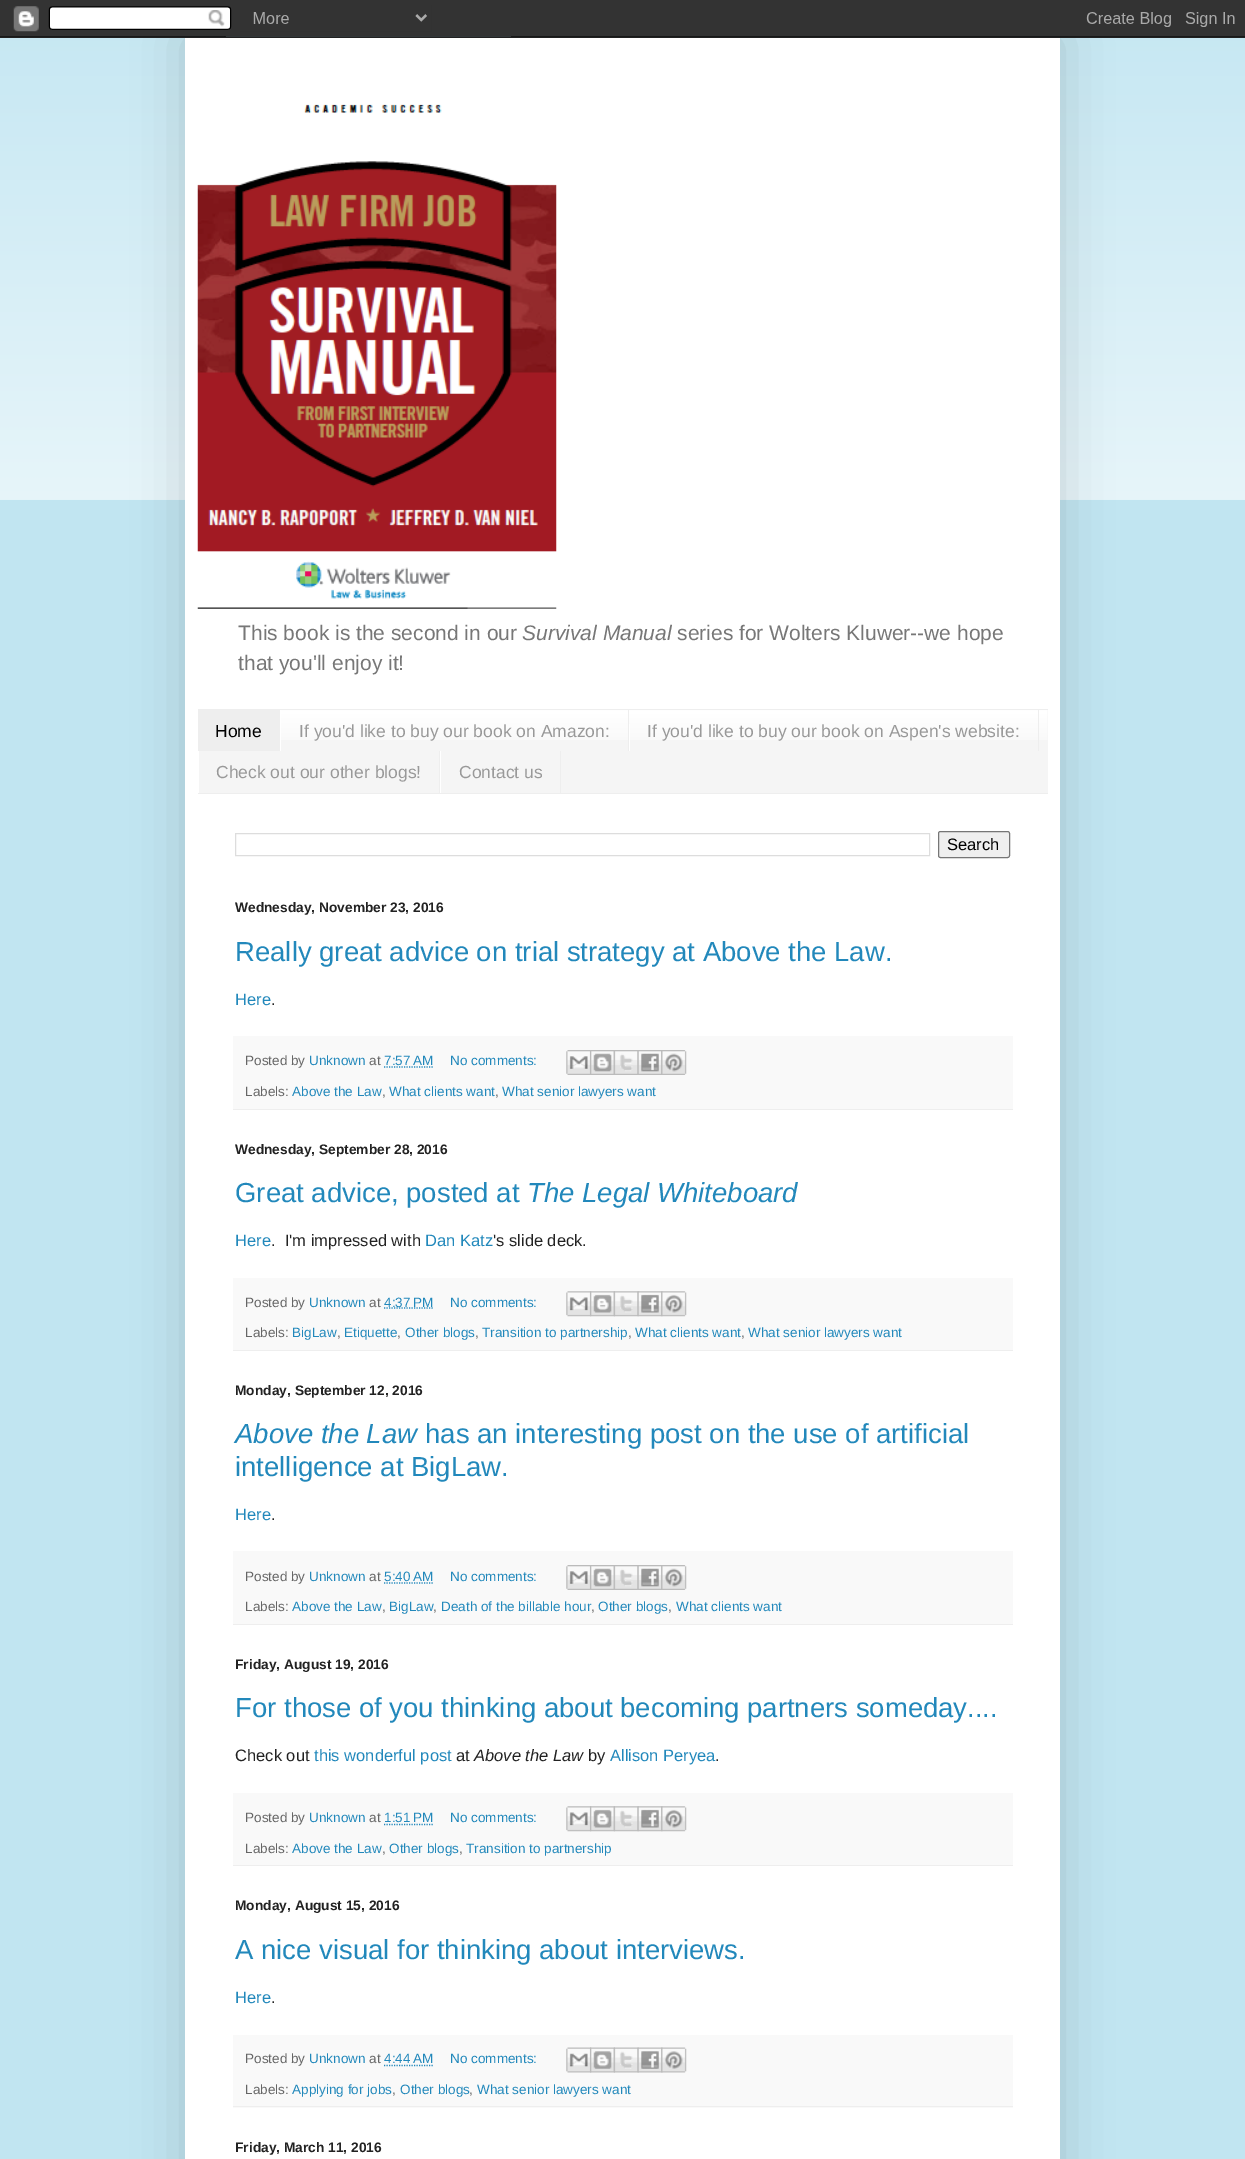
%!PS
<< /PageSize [1245 2159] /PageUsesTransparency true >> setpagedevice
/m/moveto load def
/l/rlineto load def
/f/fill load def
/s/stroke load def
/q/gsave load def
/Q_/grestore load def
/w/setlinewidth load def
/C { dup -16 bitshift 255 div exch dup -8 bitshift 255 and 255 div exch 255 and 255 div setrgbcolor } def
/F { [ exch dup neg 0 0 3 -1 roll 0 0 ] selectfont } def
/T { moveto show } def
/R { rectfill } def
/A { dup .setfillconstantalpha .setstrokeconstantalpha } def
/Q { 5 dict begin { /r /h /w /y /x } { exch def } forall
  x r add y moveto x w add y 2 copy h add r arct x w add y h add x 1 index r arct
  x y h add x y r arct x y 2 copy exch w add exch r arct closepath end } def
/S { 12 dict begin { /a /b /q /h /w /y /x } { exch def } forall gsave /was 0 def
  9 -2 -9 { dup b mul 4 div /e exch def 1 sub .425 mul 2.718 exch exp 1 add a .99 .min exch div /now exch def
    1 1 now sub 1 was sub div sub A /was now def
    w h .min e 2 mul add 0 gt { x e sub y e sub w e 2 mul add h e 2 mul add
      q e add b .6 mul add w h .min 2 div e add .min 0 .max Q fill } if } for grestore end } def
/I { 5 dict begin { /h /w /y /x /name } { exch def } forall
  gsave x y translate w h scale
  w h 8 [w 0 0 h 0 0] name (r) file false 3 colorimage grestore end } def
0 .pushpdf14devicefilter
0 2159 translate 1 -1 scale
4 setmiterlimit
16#C1E5F1 C
0 0 1245 2159 R
(2.rgb) 0 36 1245 464 I
16#000000 C
185 38 875 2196 0 25 .15 S
(1.rgb) 0 0 1245 38 I
16#FFFFFF C
185 38 875 2121 R
(3.rgb) 197 104 360 505 I
/LiberationSans-Regular 21 F
16#777777 C
(This book is the second in our) 238 640 T
/LiberationSans-Italic 21 F
(Survival Manual) 522 640 T
/LiberationSans-Regular 21 F
(series for Wolters Kluwer--we hope) 677 640 T
(that you'll enjoy it!) 238 670 T
16#F5F5F5 C
199 710 849 83 R
(4.rgb) 281 710 767 30 I
16#EEEEEE C
198 709 850 1 R
198 793 850 1 R
198 710 82 41 R
/LiberationSans-Regular 17.5 F
16#000000 C
(Home) 215 737 T
16#EEEEEE C
628 710 1 41 R
16#FFFFFF C
280 710 1 41 R
16#999999 C
(If you'd like to buy our book on Amazon:) 299 737 T
16#EEEEEE C
1038 710 1 41 R
16#FFFFFF C
629 724 1 27 R
16#999999 C
(If you'd like to buy our book on Aspen's website:) 647 737 T
16#EEEEEE C
439 751 1 42 R
16#999999 C
(Check out our other blogs!) 216 778 T
16#EEEEEE C
560 751 1 42 R
16#FFFFFF C
440 751 1 42 R
16#999999 C
(Contact us) 459 778 T
16#DDDDDD C
235.5 833.5 694 22 rectstroke
16#EFEFEF C
938.5 831.5 71 26 2 Q q f Q_
16#767676 C
s
/LiberationSans-Regular 16.5 F
16#000000 C
(Search) 947 850 T
/LiberationSans-Bold 13.75 F
16#222222 C
(Wednesday, November 23, 2016) 235 912 T
/LiberationSans-Regular 27.5 F
16#2288BB C
(Really great advice on trial strategy at Above the Law.) 235 961 T
/LiberationSans-Regular 16.5 F
(Here) 235 1005 T
16#222222 C
(.) 271 1005 T
16#F9F9F9 C
233 1036 780 73 R
16#EEEEEE C
233 1109 780 1 R
/LiberationSans-Regular 13.5 F
16#666666 C
(Posted by) 245 1065 T
16#2288BB C
(Unknown) 309 1065 T
16#666666 C
(at) 369 1065 T
16#2288BB C
(7:57 AM) 384 1065 T
1.2 w
[1.25 1.25] 0 setdash
384 1067 m 49 0 l s
(No comments:) 450 1065 T
(5.rgb) 566 1050 24 25 I
(6.rgb) 590 1050 24 25 I
(7.rgb) 613 1050 25 25 I
(8.rgb) 637 1050 25 25 I
(9.rgb) 661 1050 26 25 I
16#666666 C
(Labels:) 245 1096 T
16#2288BB C
(Above the Law) 292 1096 T
16#666666 C
(,) 382 1096 T
16#2288BB C
(What clients want) 389 1096 T
16#666666 C
(,) 495 1096 T
16#2288BB C
(What senior lawyers want) 502 1096 T
/LiberationSans-Bold 13.75 F
16#222222 C
(Wednesday, September 28, 2016) 235 1154 T
/LiberationSans-Regular 27.5 F
16#2288BB C
(Great advice, posted at) 235 1202 T
/LiberationSans-Italic 27.5 F
(The Legal Whiteboard) 527 1202 T
/LiberationSans-Regular 16.5 F
(Here) 235 1246 T
16#222222 C
(.  I'm impressed with) 271 1246 T
16#2288BB C
(Dan Katz) 425 1246 T
16#222222 C
('s slide deck.) 493 1246 T
16#F9F9F9 C
233 1278 780 72 R
16#EEEEEE C
233 1350 780 1 R
/LiberationSans-Regular 13.5 F
16#666666 C
(Posted by) 245 1307 T
16#2288BB C
(Unknown) 309 1307 T
16#666666 C
(at) 369 1307 T
16#2288BB C
384 1308 m 49 0 l s
(4:37 PM) 384 1307 T
(No comments:) 450 1307 T
(10.rgb) 566 1291 26 26 I
(11.rgb) 590 1291 25 26 I
(12.rgb) 613 1291 26 26 I
(13.rgb) 637 1291 26 26 I
(14.rgb) 661 1291 26 26 I
16#666666 C
(Labels:) 245 1337 T
16#2288BB C
(BigLaw) 292 1337 T
16#666666 C
(,) 337 1337 T
16#2288BB C
(Etiquette) 344 1337 T
16#666666 C
(,) 397 1337 T
16#2288BB C
(Other blogs) 405 1337 T
16#666666 C
(,) 475 1337 T
16#2288BB C
(Transition to partnership) 482 1337 T
16#666666 C
(,) 628 1337 T
16#2288BB C
(What clients want) 635 1337 T
16#666666 C
(,) 741 1337 T
16#2288BB C
(What senior lawyers want) 748 1337 T
/LiberationSans-Bold 13.75 F
16#222222 C
(Monday, September 12, 2016) 235 1395 T
/LiberationSans-Italic 27.5 F
16#2288BB C
(Above the Law) 235 1443 T
/LiberationSans-Regular 27.5 F
(has an interesting post on the use of artificial) 425 1443 T
(intelligence at BigLaw.) 235 1476 T
/LiberationSans-Regular 16.5 F
(Here) 235 1520 T
16#222222 C
(.) 271 1520 T
16#F9F9F9 C
233 1551 780 73 R
16#EEEEEE C
233 1624 780 1 R
/LiberationSans-Regular 13.5 F
16#666666 C
(Posted by) 245 1581 T
16#2288BB C
(Unknown) 309 1581 T
16#666666 C
(at) 369 1581 T
16#2288BB C
(5:40 AM) 384 1581 T
384 1583 m 49 0 l s
(No comments:) 450 1581 T
(5.rgb) 566 1565 24 25 I
(6.rgb) 590 1565 24 25 I
(7.rgb) 613 1565 25 25 I
(8.rgb) 637 1565 25 25 I
(9.rgb) 661 1565 26 25 I
16#666666 C
(Labels:) 245 1611 T
16#2288BB C
(Above the Law) 292 1611 T
16#666666 C
(,) 382 1611 T
16#2288BB C
(BigLaw) 389 1611 T
16#666666 C
(,) 433 1611 T
16#2288BB C
(Death of the billable hour) 441 1611 T
16#666666 C
(,) 591 1611 T
16#2288BB C
(Other blogs) 598 1611 T
16#666666 C
(,) 668 1611 T
16#2288BB C
(What clients want) 676 1611 T
/LiberationSans-Bold 13.75 F
16#222222 C
(Friday, August 19, 2016) 235 1669 T
/LiberationSans-Regular 27.5 F
16#2288BB C
(For those of you thinking about becoming partners someday....) 235 1717 T
/LiberationSans-Regular 16.5 F
16#222222 C
(Check out) 235 1761 T
16#2288BB C
(this wonderful post) 314 1761 T
16#222222 C
(at) 456 1761 T
/LiberationSans-Italic 16.5 F
(Above the Law) 474 1761 T
/LiberationSans-Regular 16.5 F
(by) 588 1761 T
16#2288BB C
(Allison Peryea) 610 1761 T
16#222222 C
(.) 715 1761 T
16#F9F9F9 C
233 1793 780 72 R
16#EEEEEE C
233 1865 780 1 R
/LiberationSans-Regular 13.5 F
16#666666 C
(Posted by) 245 1822 T
16#2288BB C
(Unknown) 309 1822 T
16#666666 C
(at) 369 1822 T
16#2288BB C
(1:51 PM) 384 1822 T
384 1824.5 m 49 0 l s
(No comments:) 450 1822 T
(10.rgb) 566 1806 26 26 I
(11.rgb) 590 1806 25 26 I
(12.rgb) 613 1806 26 26 I
(13.rgb) 637 1806 26 26 I
(14.rgb) 661 1806 26 26 I
16#666666 C
(Labels:) 245 1853 T
16#2288BB C
(Above the Law) 292 1853 T
16#666666 C
(,) 382 1853 T
16#2288BB C
(Other blogs) 389 1853 T
16#666666 C
(,) 459 1853 T
16#2288BB C
(Transition to partnership) 466 1853 T
/LiberationSans-Bold 13.75 F
16#222222 C
(Monday, August 15, 2016) 235 1910 T
/LiberationSans-Regular 27.5 F
16#2288BB C
(A nice visual for thinking about interviews.) 235 1959 T
/LiberationSans-Regular 16.5 F
(Here) 235 2003 T
16#222222 C
(.) 271 2003 T
16#F9F9F9 C
233 2035 780 73 R
16#EEEEEE C
233 2106 780 1 R
/LiberationSans-Regular 13.5 F
16#666666 C
(Posted by) 245 2063 T
16#2288BB C
(Unknown) 309 2063 T
16#666666 C
(at) 369 2063 T
16#2288BB C
(4:44 AM) 384 2063 T
384 2065.5 m 49 0 l s
(No comments:) 450 2063 T
(15.rgb) 566 2047 26 26 I
(16.rgb) 590 2047 25 26 I
(17.rgb) 613 2047 26 26 I
(18.rgb) 637 2047 26 26 I
(19.rgb) 661 2047 26 26 I
16#666666 C
(Labels:) 245 2094 T
16#2288BB C
(Applying for jobs) 292 2094 T
16#666666 C
(,) 392 2094 T
16#2288BB C
(Other blogs) 400 2094 T
16#666666 C
(,) 469 2094 T
16#2288BB C
(What senior lawyers want) 477 2094 T
/LiberationSans-Bold 13.75 F
16#222222 C
(Friday, March 11, 2016) 235 2152 T
.poppdf14devicefilter showpage
